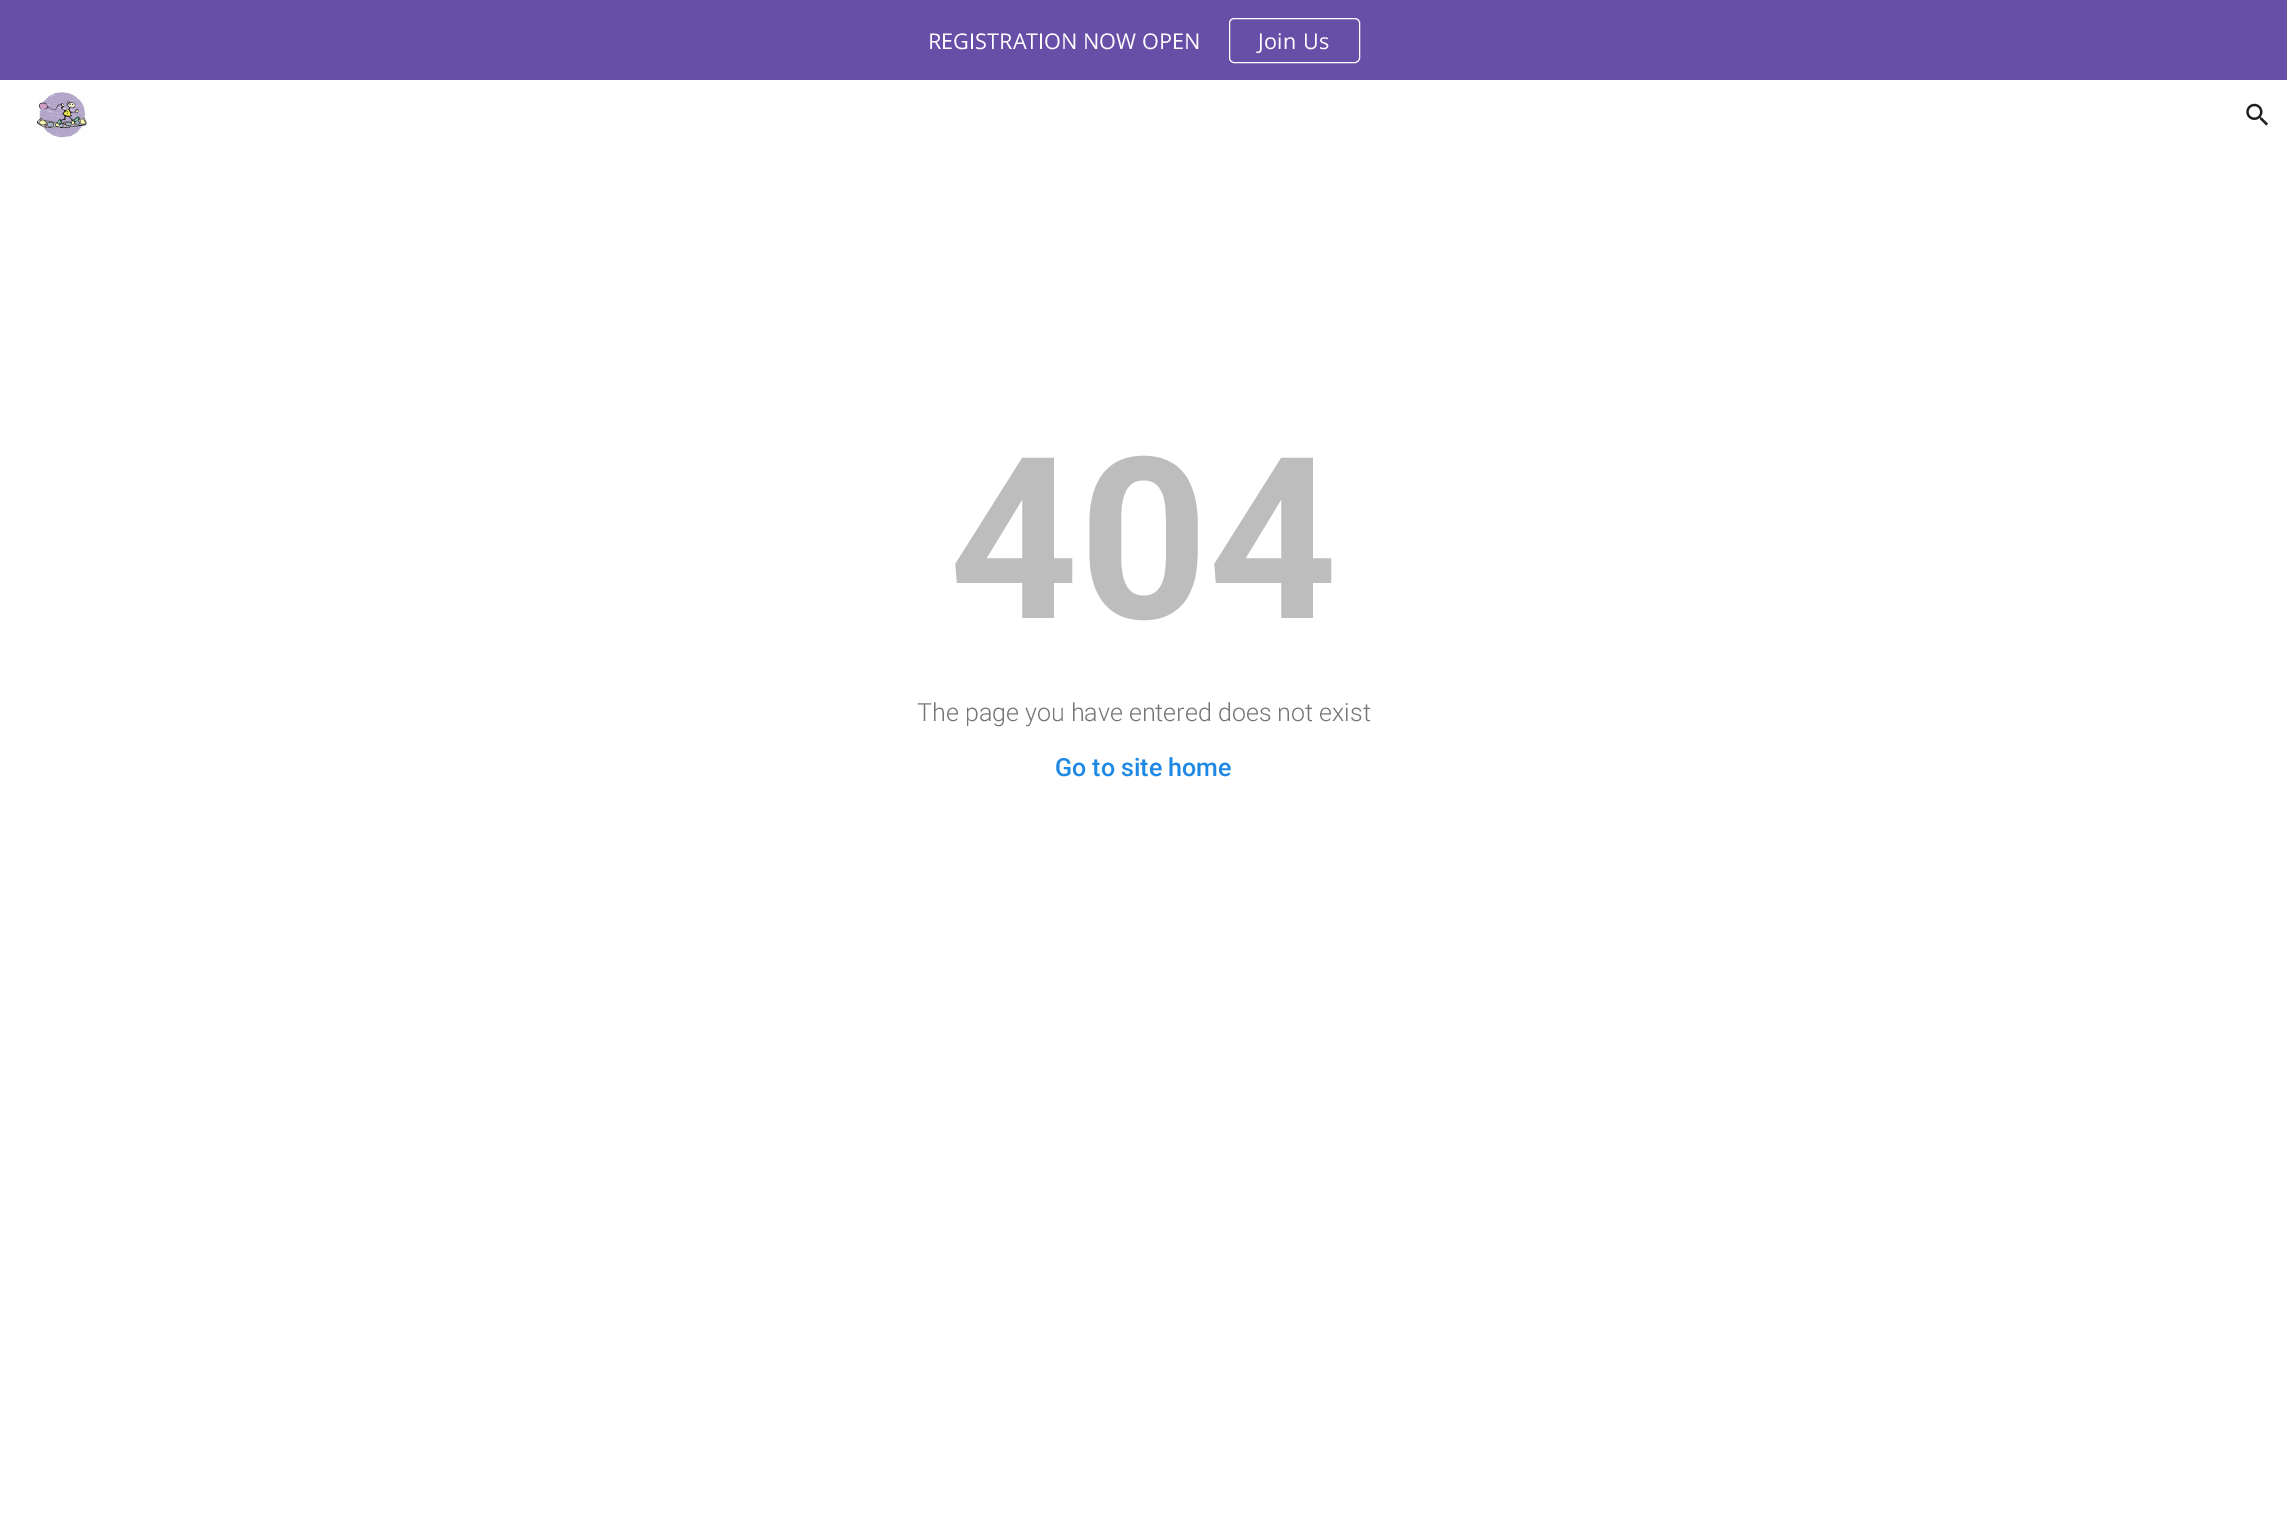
%!PS
<< /PageSize [2287 1513] >> setpagedevice
/m/moveto load def
/s/stroke load def
/C { dup -16 bitshift 255 div exch dup -8 bitshift 255 and 255 div exch 255 and 255 div setrgbcolor } def
/F { [ exch dup neg 0 0 3 -1 roll 0 0 ] selectfont } def
/T { moveto show } def
/R { rectfill } def
/Q { 5 dict begin { /r /h /w /y /x } { exch def } forall
  x r add y moveto x w add y 2 copy h add r arct x w add y h add x 1 index r arct
  x y h add x y r arct x y 2 copy exch w add exch r arct closepath end } def
/I { 5 dict begin { /h /w /y /x /name } { exch def } forall
  gsave x y translate w h scale
  w h 8 [w 0 0 h 0 0] name (r) file false 3 colorimage grestore end } def
0 1513 translate 1 -1 scale
4 setmiterlimit
16#FFFFFF C
0 0 2287 1513 R
16#674EA7 C
0 0 2287 80 R
/OpenSans-Regular 21.7 F
16#FFFFFF C
(REGISTRATION NOW OPEN) 928 49 T
1229.5 18.5 130 44 4.5 Q s
1258 49 m .25 0 (Join Us) ashow
(1.rgb) 37 92 50 46 I
(2.rgb) 2246 103 22 23 I
/Roboto-Bold 226 F
16#BDBDBD C
(404) 949 618 T
/Roboto-Light 25 F
16#757575 C
(The page you have entered does not exist) 917 721 T
/Roboto-Medium 25 F
16#1E88E5 C
(Go to site home) 1055 776 T
showpage
